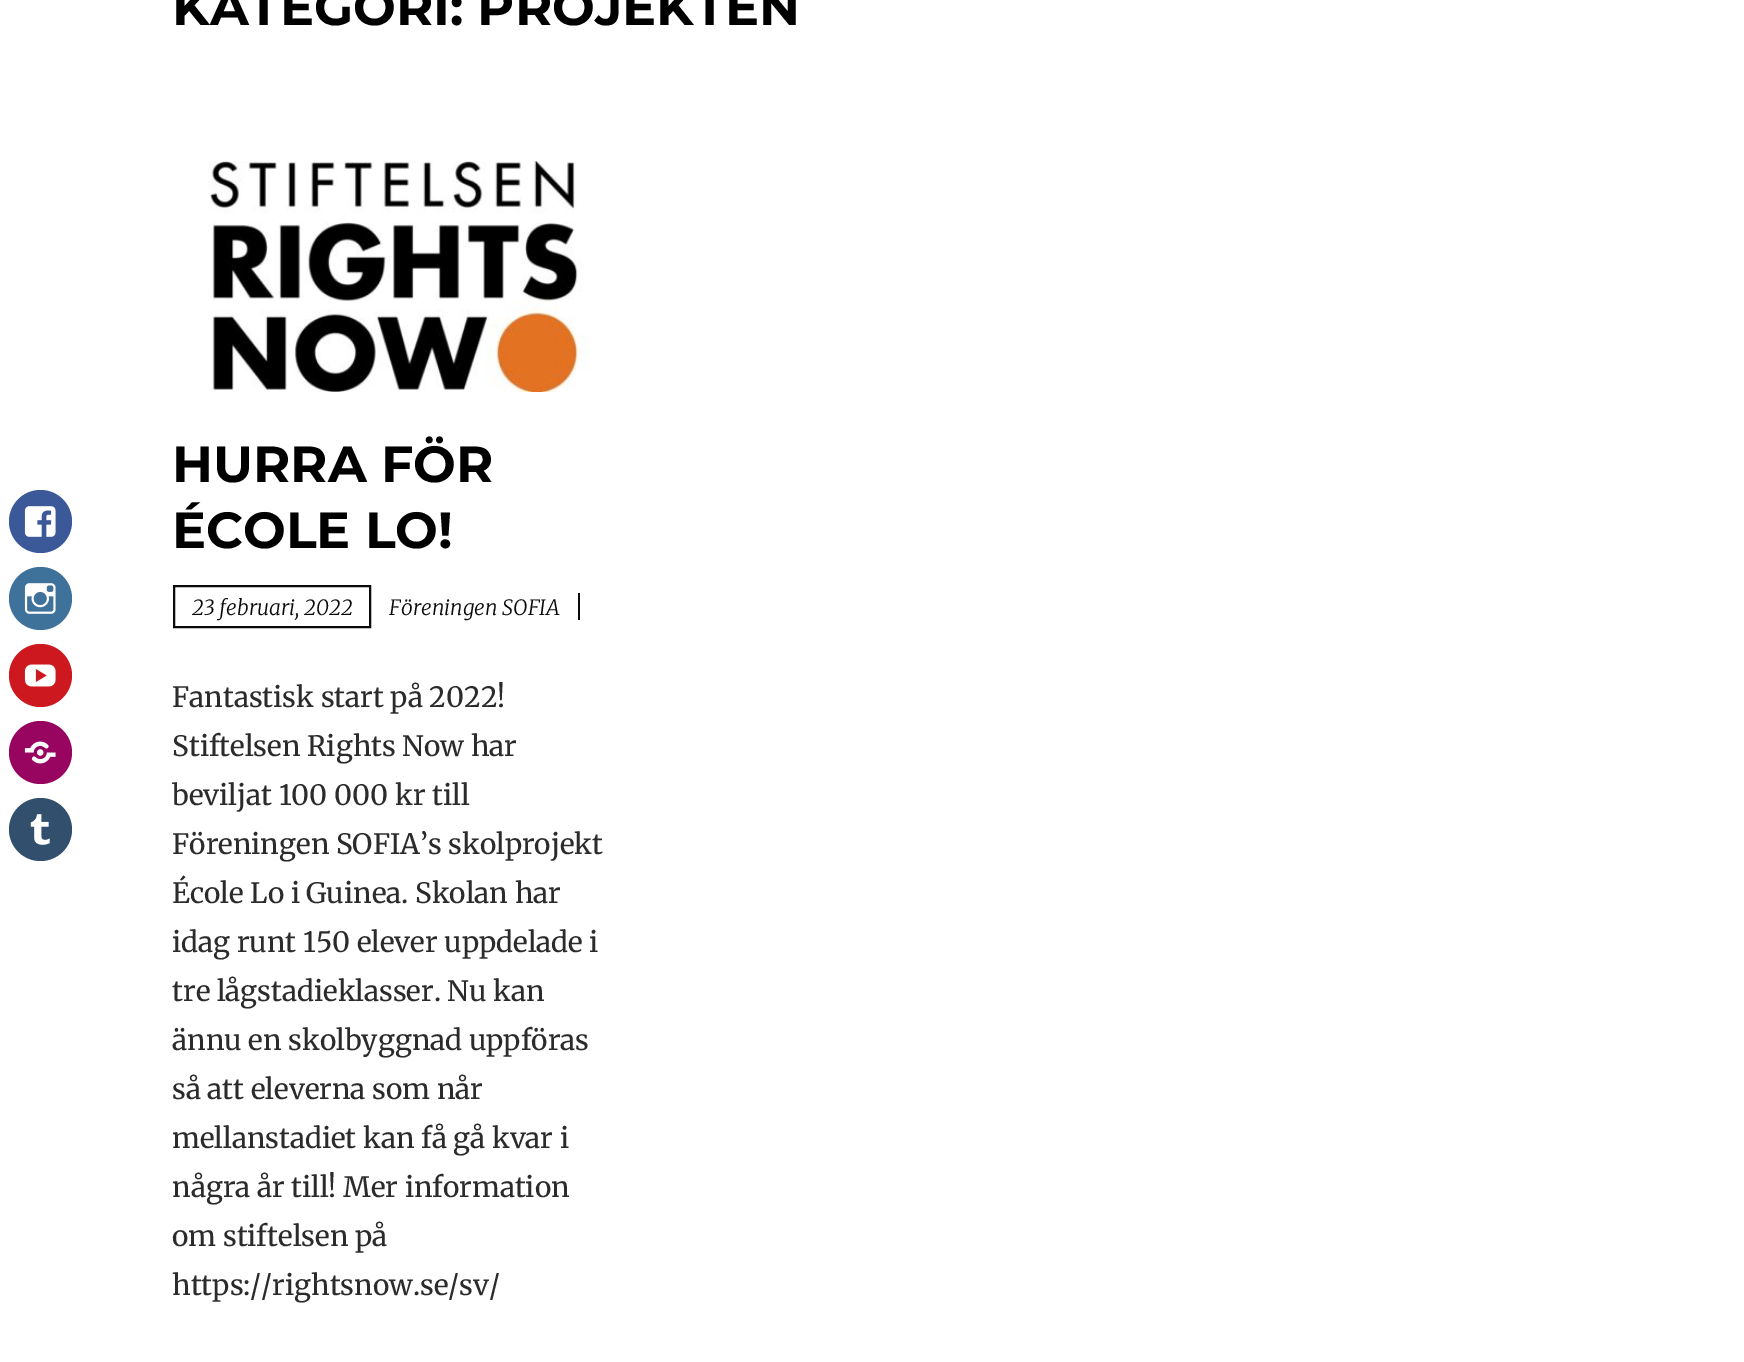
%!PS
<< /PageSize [1744 1362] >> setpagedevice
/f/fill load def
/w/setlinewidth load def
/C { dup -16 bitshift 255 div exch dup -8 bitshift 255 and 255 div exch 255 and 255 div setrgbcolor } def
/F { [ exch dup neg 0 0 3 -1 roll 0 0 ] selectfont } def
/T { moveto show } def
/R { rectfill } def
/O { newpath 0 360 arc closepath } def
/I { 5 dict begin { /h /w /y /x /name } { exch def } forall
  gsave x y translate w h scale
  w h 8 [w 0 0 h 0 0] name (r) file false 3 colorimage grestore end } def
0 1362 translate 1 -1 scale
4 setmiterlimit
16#FFFFFF C
0 0 1744 1362 R
16#3B5998 C
40.5 521.5 31.5 O f
(1.rgb) 24 506 32 31 I
16#3F729B C
40.5 598.5 31.5 O f
(2.rgb) 24 583 32 31 I
16#CC181E C
40.5 675.5 31.5 O f
(3.rgb) 24 664 32 23 I
16#980560 C
40.5 752.5 31.5 O f
(4.rgb) 24 741 32 23 I
16#32506D C
40.5 829.5 31.5 O f
(5.rgb) 30 814 20 31 I
/Montserrat-Thin 50.75 F
16#000000 C
(KATEGORI: PROJEKTEN) 172 25 T
(6.rgb) 208 161 381 231 I
(HURRA FÖR) 172 482 T
(ÉCOLE LO!) 172 548 T
16#0A0A0A C
2 w
174 586 196 41 rectstroke
/Merriweather-LightItalic 21 F
(23 februari, 2022) 192 615 T
(Föreningen SOFIA) 389 615 T
578 593 2 27 R
/Merriweather-Light 28 F
16#2B2B2B C
(Fantastisk start på 2022!) 172 707 T
(Stiftelsen Rights Now har) 172 756 T
(beviljat 100 000 kr till) 172 805 T
(Föreningen SOFIA’s skolprojekt) 172 854 T
(École Lo i Guinea. Skolan har) 172 903 T
(idag runt 150 elever uppdelade i) 172 952 T
(tre lågstadieklasser. Nu kan) 172 1001 T
(ännu en skolbyggnad uppföras) 172 1050 T
(så att eleverna som når) 172 1099 T
(mellanstadiet kan få gå kvar i) 172 1148 T
(några år till! Mer information) 172 1197 T
(om stiftelsen på) 172 1246 T
(https://rightsnow.se/sv/) 172 1295 T
showpage
